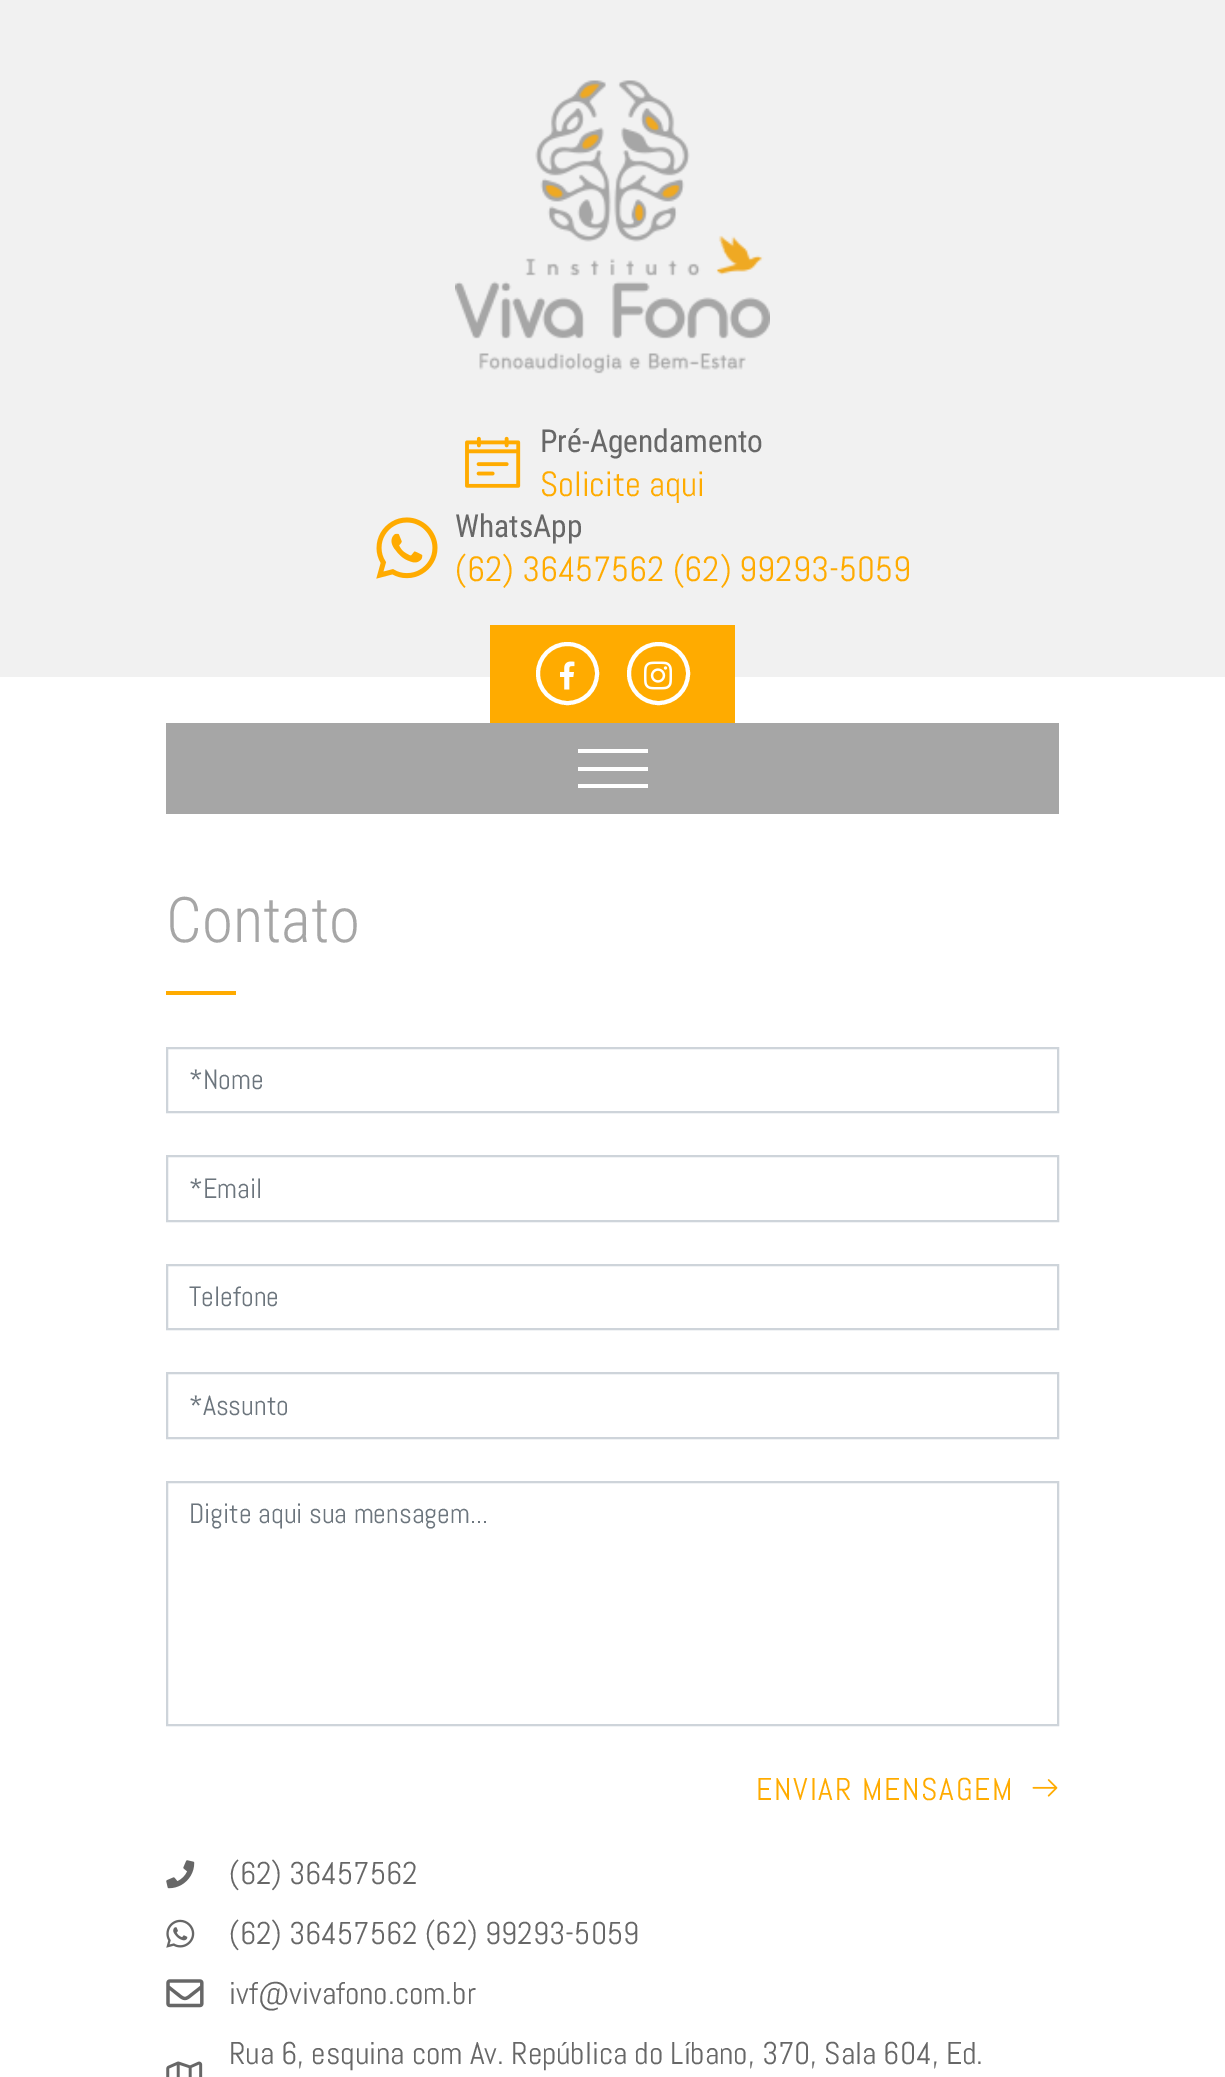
%!PS
<< /PageSize [1225 2077] >> setpagedevice
/m/moveto load def
/s/stroke load def
/w/setlinewidth load def
/C { dup -16 bitshift 255 div exch dup -8 bitshift 255 and 255 div exch 255 and 255 div setrgbcolor } def
/F { [ exch dup neg 0 0 3 -1 roll 0 0 ] selectfont } def
/T { moveto show } def
/R { rectfill } def
/O { newpath 0 360 arc closepath } def
/I { 5 dict begin { /h /w /y /x /name } { exch def } forall
  gsave x y translate w h scale
  w h 8 [w 0 0 h 0 0] name (r) file false 3 colorimage grestore end } def
0 2077 translate 1 -1 scale
4 setmiterlimit
16#FFFFFF C
0 0 1225 2077 R
16#F1F1F1 C
0 0 1225 677 R
(1.rgb) 455 80 315 294 I
(2.rgb) 465 436 56 52 I
/RobotoCondensed-Regular 31.5 F
16#676767 C
(Pré-Agendamento) 540 452 T
/Abel-Regular 35 F
16#FFAB00 C
(Solicite aqui) 540 496 T
(3.rgb) 376 517 62 62 I
/RobotoCondensed-Regular 31.5 F
16#676767 C
(WhatsApp) 455 537 T
/Abel-Regular 35 F
16#FFAB00 C
(\(62\) 36457562 \(62\) 99293-5059) 455 581 T
490 625 245 98 R
16#FFFFFF C
4 w
567.5 673.5 29.5 O s
(4.rgb) 560 661 15 29 I
658.5 673.5 29.5 O s
(5.rgb) 644 661 28 29 I
16#A6A6A6 C
166 723 893 91 R
16#FFFFFF C
578 767 70 4 R
578 749 70 4 R
578 784 70 4 R
/RobotoCondensed-Light 63 F
16#A6A6A6 C
(Contato) 166 942 T
16#FFAB00 C
166 991 70 4 R
16#CED4DA C
2 w
167 1048 891 64 rectstroke
/Abel-Regular 28 F
16#6C757D C
(*Nome) 189 1089 T
16#CED4DA C
167 1156 891 65 rectstroke
16#6C757D C
(*Email) 189 1198 T
16#CED4DA C
167 1265 891 64 rectstroke
16#6C757D C
(Telefone) 189 1306 T
16#CED4DA C
167 1373 891 65 rectstroke
16#6C757D C
(*Assunto) 189 1415 T
16#CED4DA C
167 1482 891 243 rectstroke
16#6C757D C
(Digite aqui sua mensagem...) 189 1523 T
/Abel-Regular 31.5 F
16#FFAB00 C
756 1800 m 1.75 0 (ENVIAR MENSAGEM) ashow
(6.rgb) 1032 1779 26 18 I
(7.rgb) 166 1860 29 29 I
16#676767 C
(\(62\) 36457562) 229 1884 T
(8.rgb) 166 1919 29 29 I
(\(62\) 36457562 \(62\) 99293-5059) 229 1944 T
(9.rgb) 166 1979 38 29 I
(ivf@vivafono.com.br) 229 2004 T
(10.rgb) 166 2061 37 16 I
(Rua 6, esquina com Av. República do Líbano, 370, Sala 604, Ed.) 229 2064 T
showpage
